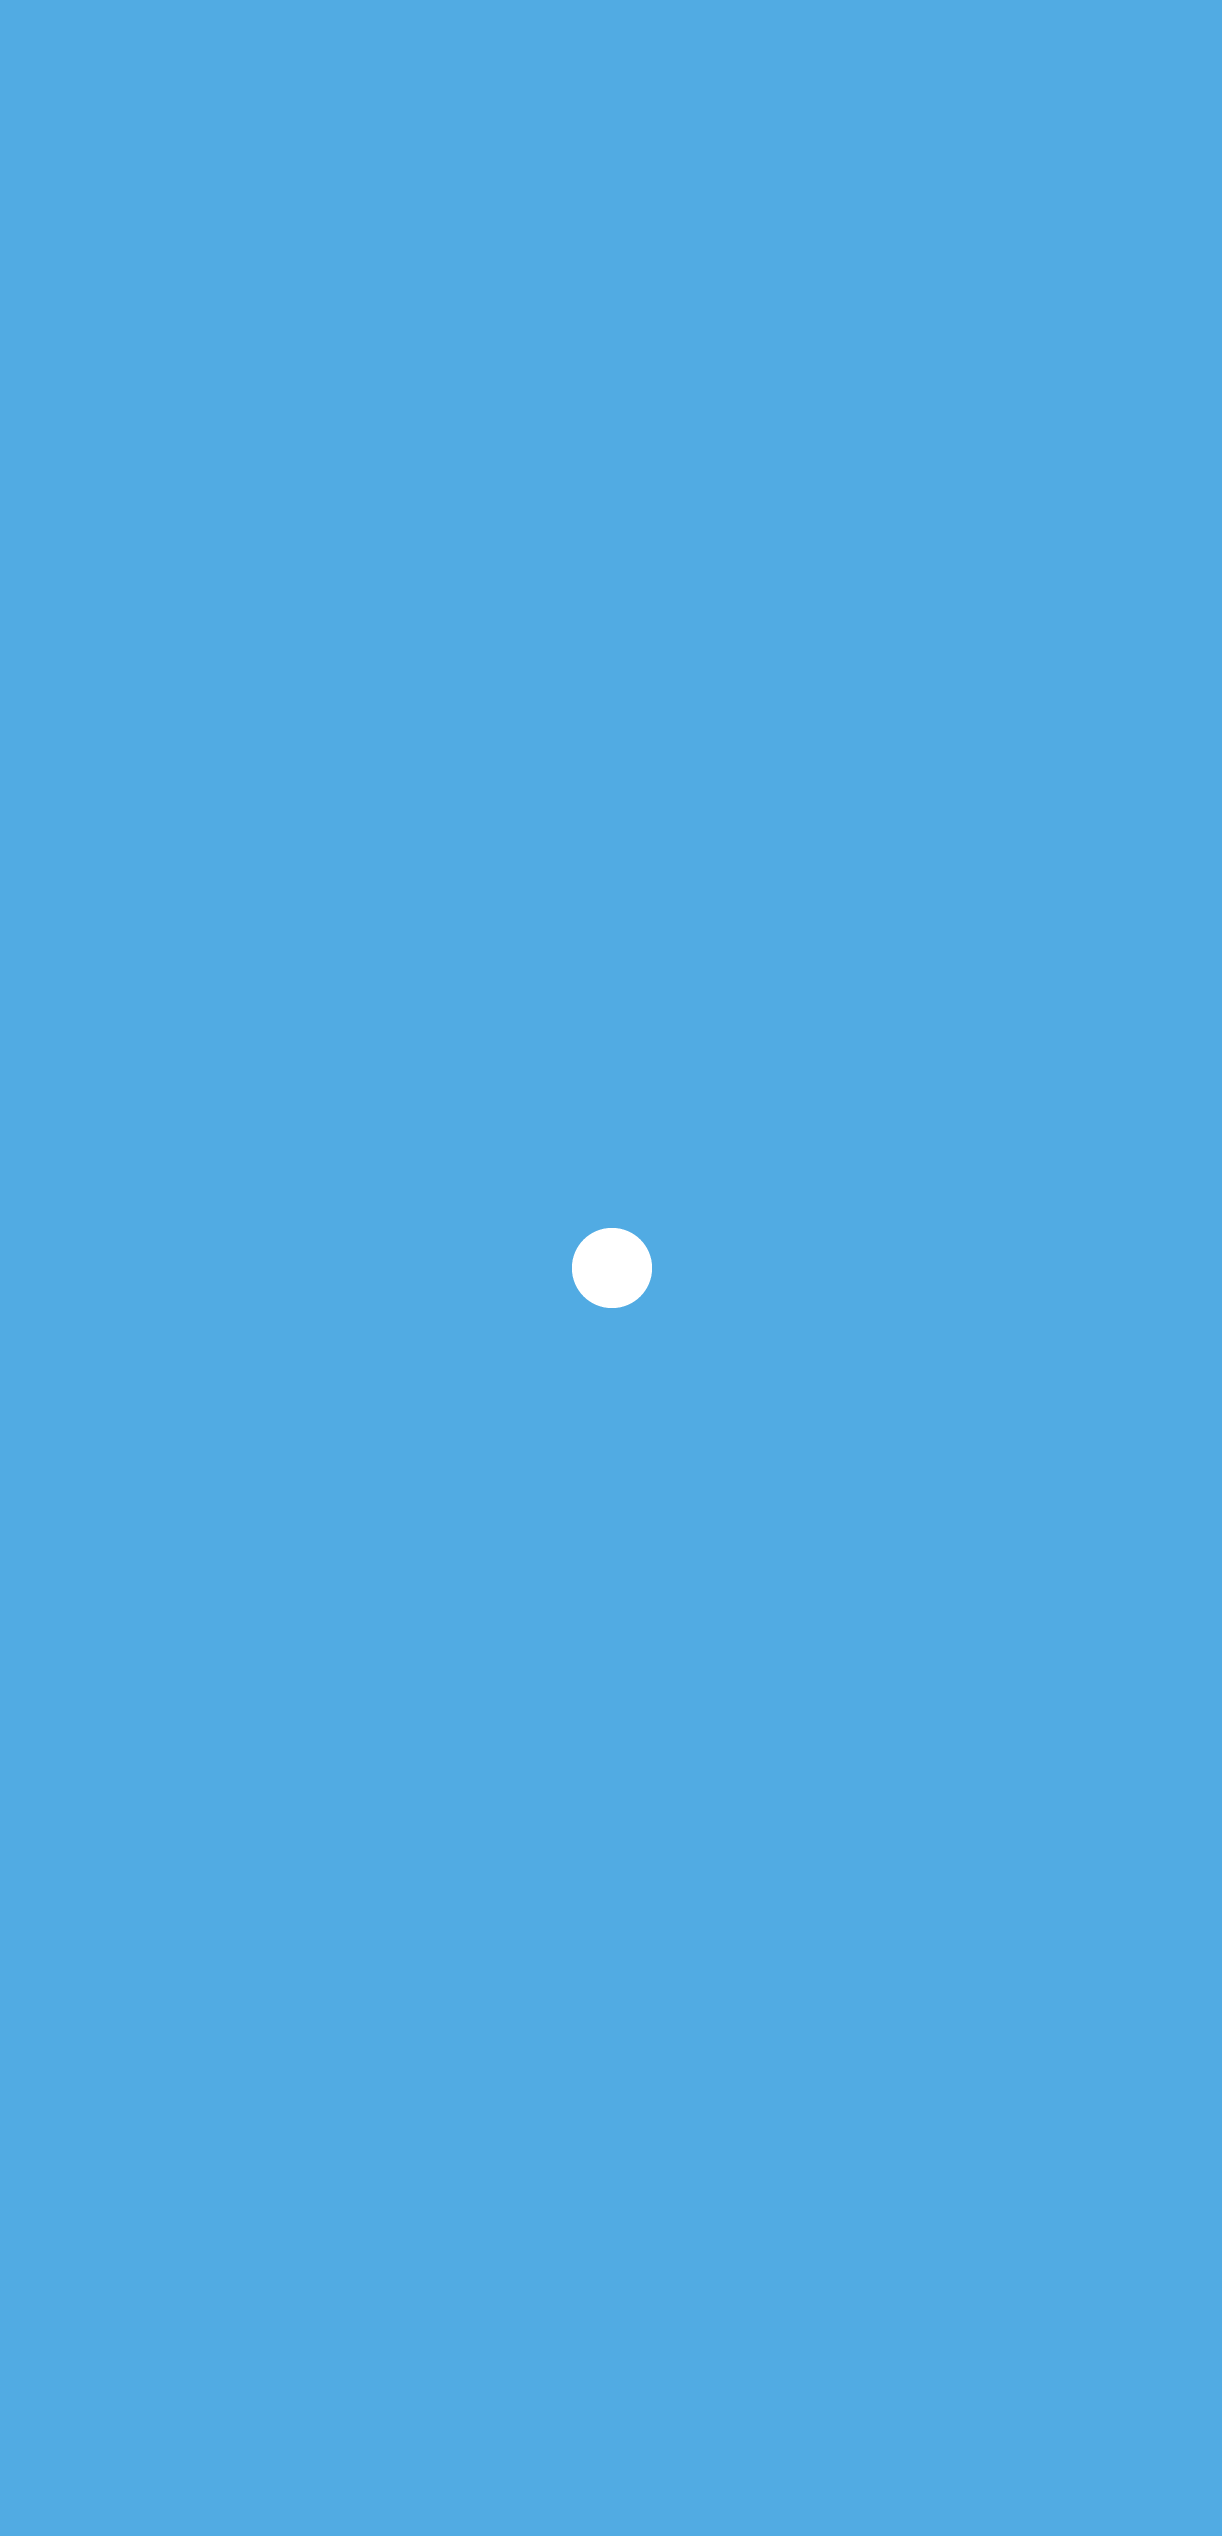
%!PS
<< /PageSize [1222 2536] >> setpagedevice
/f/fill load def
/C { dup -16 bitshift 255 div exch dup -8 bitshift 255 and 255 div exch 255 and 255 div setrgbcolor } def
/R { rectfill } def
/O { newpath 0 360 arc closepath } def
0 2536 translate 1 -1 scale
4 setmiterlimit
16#51ABE3 C
0 0 1222 2536 R
16#FFFFFF C
612 1268 40 O f
showpage
